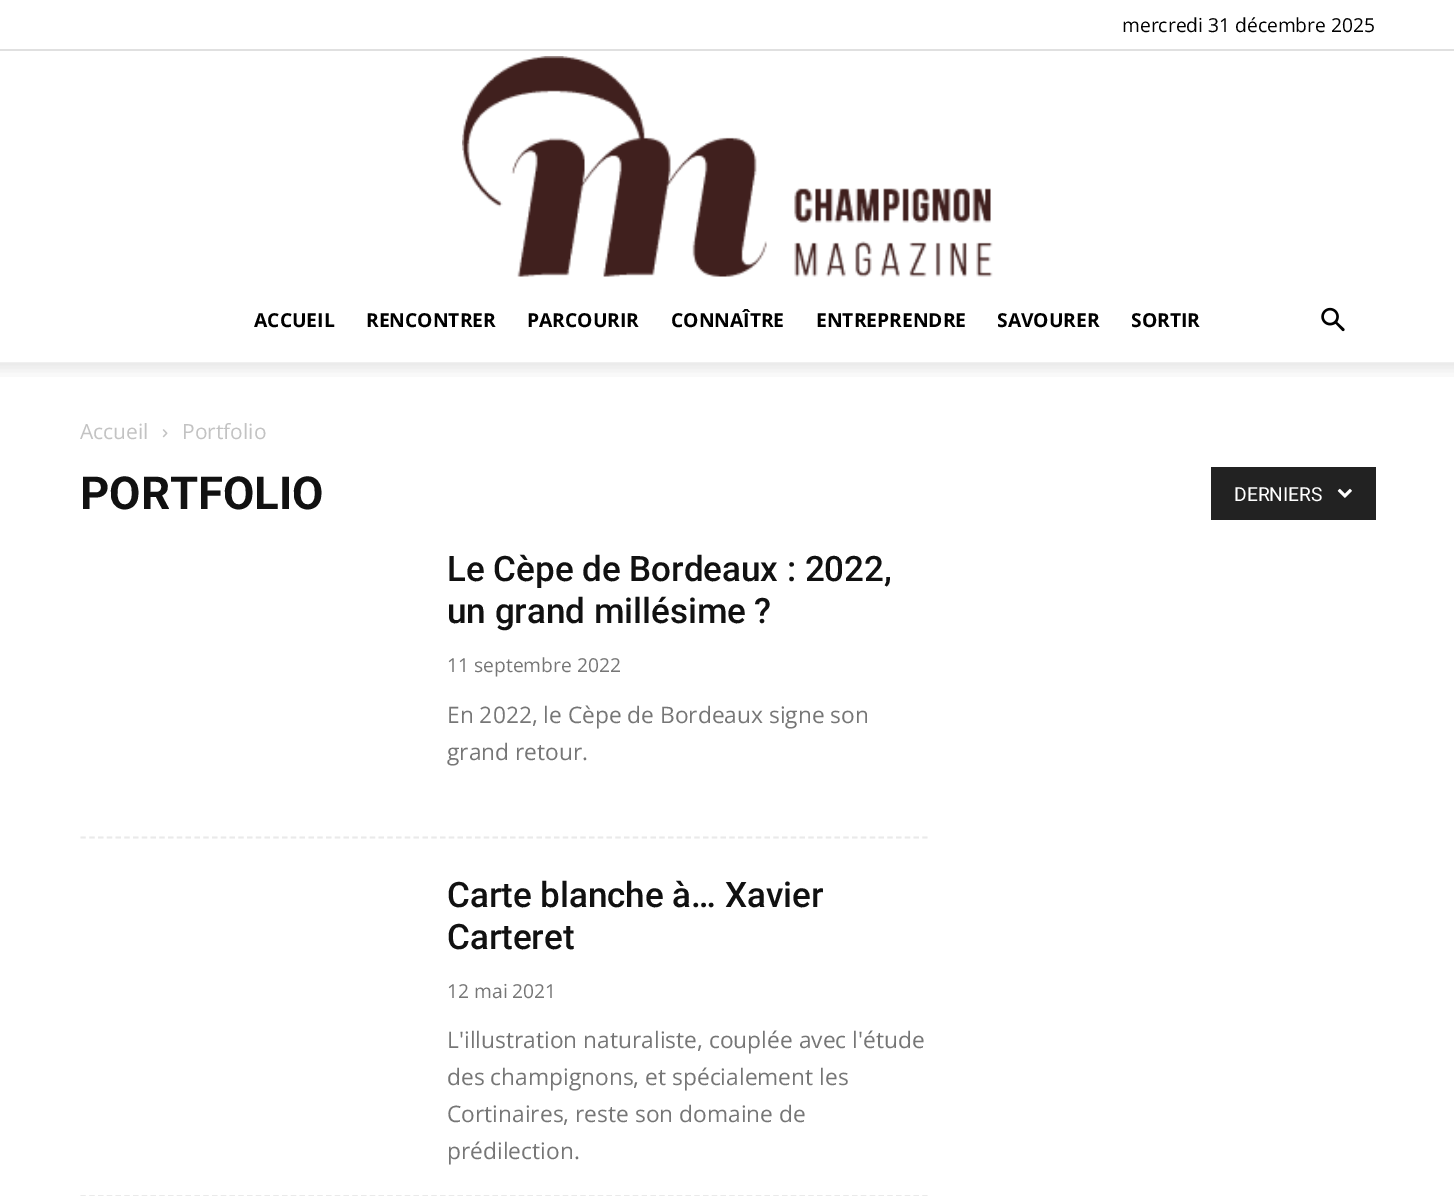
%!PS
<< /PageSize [1454 1196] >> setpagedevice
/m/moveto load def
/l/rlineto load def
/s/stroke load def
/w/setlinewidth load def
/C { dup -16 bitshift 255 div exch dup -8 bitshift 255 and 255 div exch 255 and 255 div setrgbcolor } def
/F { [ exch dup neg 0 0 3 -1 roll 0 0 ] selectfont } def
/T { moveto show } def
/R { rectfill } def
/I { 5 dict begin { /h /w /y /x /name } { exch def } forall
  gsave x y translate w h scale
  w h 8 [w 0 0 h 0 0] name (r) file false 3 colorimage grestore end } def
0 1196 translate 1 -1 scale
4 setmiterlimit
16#FFFFFF C
0 0 1454 1196 R
16#E0E0E0 C
0 49 1454 2 R
/OpenSans-Regular 19.25 F
16#000000 C
(mercredi 31 décembre 2025) 1122 32 T
(1.rgb) 462 56 531 221 I
/OpenSans-Bold 19.25 F
(ACCUEIL) 254 327 T
(RENCONTRER) 366 327 T
(PARCOURIR) 527 327 T
(CONNAÎTRE) 671 327 T
(ENTREPRENDRE) 816 327 T
(SAVOURER) 997 327 T
(SORTIR) 1131 327 T
(2.rgb) 1321 307 24 25 I
(3.rgb) 0 362 1454 15 I
/OpenSans-Regular 21 F
16#C3C3C3 C
(Accueil) 80 439 T
(4.rgb) 162 429 6 9 I
(Portfolio) 182 439 T
/Roboto-Bold 45.5 F
16#111111 C
(PORTFOLIO) 80 509 T
16#222222 C
1211 467 165 53 R
/Roboto-Regular 19.25 F
16#FFFFFF C
(DERNIERS) 1234 501 T
(5.rgb) 1337 488 15 10 I
16#EAEAEA C
1.8 w
[5.25 3.52] 0 setdash
80.5 837.5 m 847 0 l s
/Roboto-Medium 35 F
16#111111 C
(Le Cèpe de Bordeaux : 2022,) 447 581 T
(un grand millésime ?) 447 623 T
/OpenSans-Regular 19.25 F
16#767676 C
(11 septembre 2022) 447 672 T
/OpenSans-Regular 22.75 F
(En 2022, le Cèpe de Bordeaux signe son) 447 723 T
(grand retour.) 447 760 T
16#EAEAEA C
80.5 1196 m 847 0 l s
/Roboto-Medium 35 F
16#111111 C
(Carte blanche à… Xavier) 447 907 T
(Carteret) 447 949 T
/OpenSans-Regular 19.25 F
16#767676 C
(12 mai 2021) 447 998 T
/OpenSans-Regular 22.75 F
(L'illustration naturaliste, couplée avec l'étude) 447 1048 T
(des champignons, et spécialement les) 447 1085 T
(Cortinaires, reste son domaine de) 447 1122 T
(prédilection.) 447 1159 T
showpage
